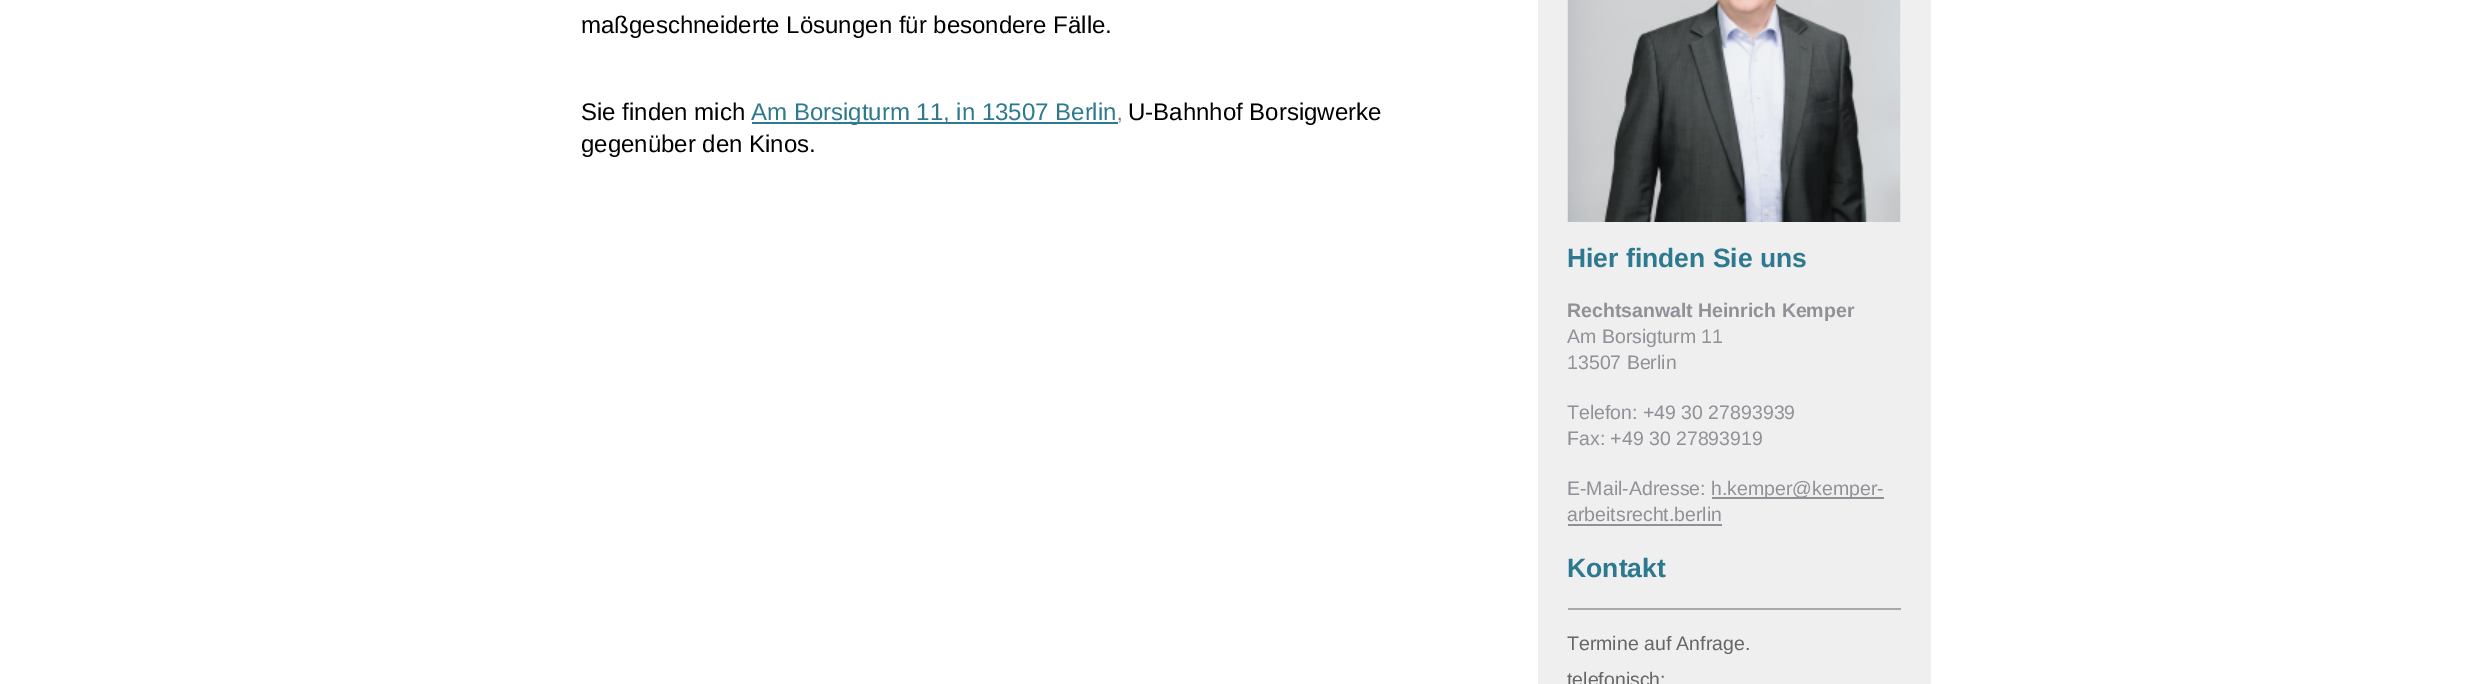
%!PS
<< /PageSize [2481 684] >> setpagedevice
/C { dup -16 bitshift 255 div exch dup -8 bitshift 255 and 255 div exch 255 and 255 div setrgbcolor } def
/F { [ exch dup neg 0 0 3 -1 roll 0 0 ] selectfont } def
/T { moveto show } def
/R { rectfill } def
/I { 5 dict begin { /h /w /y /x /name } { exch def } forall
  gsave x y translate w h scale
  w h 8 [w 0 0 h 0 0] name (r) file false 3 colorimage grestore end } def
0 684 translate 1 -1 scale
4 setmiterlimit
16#FFFFFF C
0 0 2481 684 R
/LiberationSans-Regular 24 F
16#000000 C
(maßgeschneiderte Lösungen für besondere Fälle.) 581 33 T
(Sie finden mich) 581 120 T
16#2C7990 C
752 122 366 2 R
(Am Borsigturm 11, in 13507 Berlin) 751 120 T
/LiberationSans-Regular 20 F
16#757575 C
(,) 1117 120 T
/LiberationSans-Regular 24 F
16#000000 C
(U-Bahnhof Borsigwerke) 1128 120 T
(gegenüber den Kinos.) 581 152 T
16#EFEFF0 C
1538 0 393 684 R
(1.rgb) 1567 0 334 222 I
/LiberationSans-Bold 26.5 F
16#2C7990 C
(Hier finden Sie uns) 1567 267 T
/LiberationSans-Bold 19.5 F
16#909097 C
(Rechtsanwalt Heinrich Kemper) 1567 317 T
/LiberationSans-Regular 19.5 F
(Am Borsigturm 11) 1567 343 T
(13507 Berlin) 1567 369 T
(Telefon: +49 30 27893939) 1567 419 T
(Fax: +49 30 27893919) 1567 445 T
(E-Mail-Adresse:) 1567 495 T
1712 497 172 2 R
(h.kemper@kemper-) 1711 495 T
(arbeitsrecht.berlin) 1567 521 T
1568 524 154 2 R
/LiberationSans-Bold 26.5 F
16#2C7990 C
(Kontakt) 1567 577 T
16#A8A8AD C
1568 608 333 2 R
/LiberationSans-Regular 19.5 F
16#666666 C
(Termine auf Anfrage.) 1567 650 T
(telefonisch:) 1567 686 T
showpage
